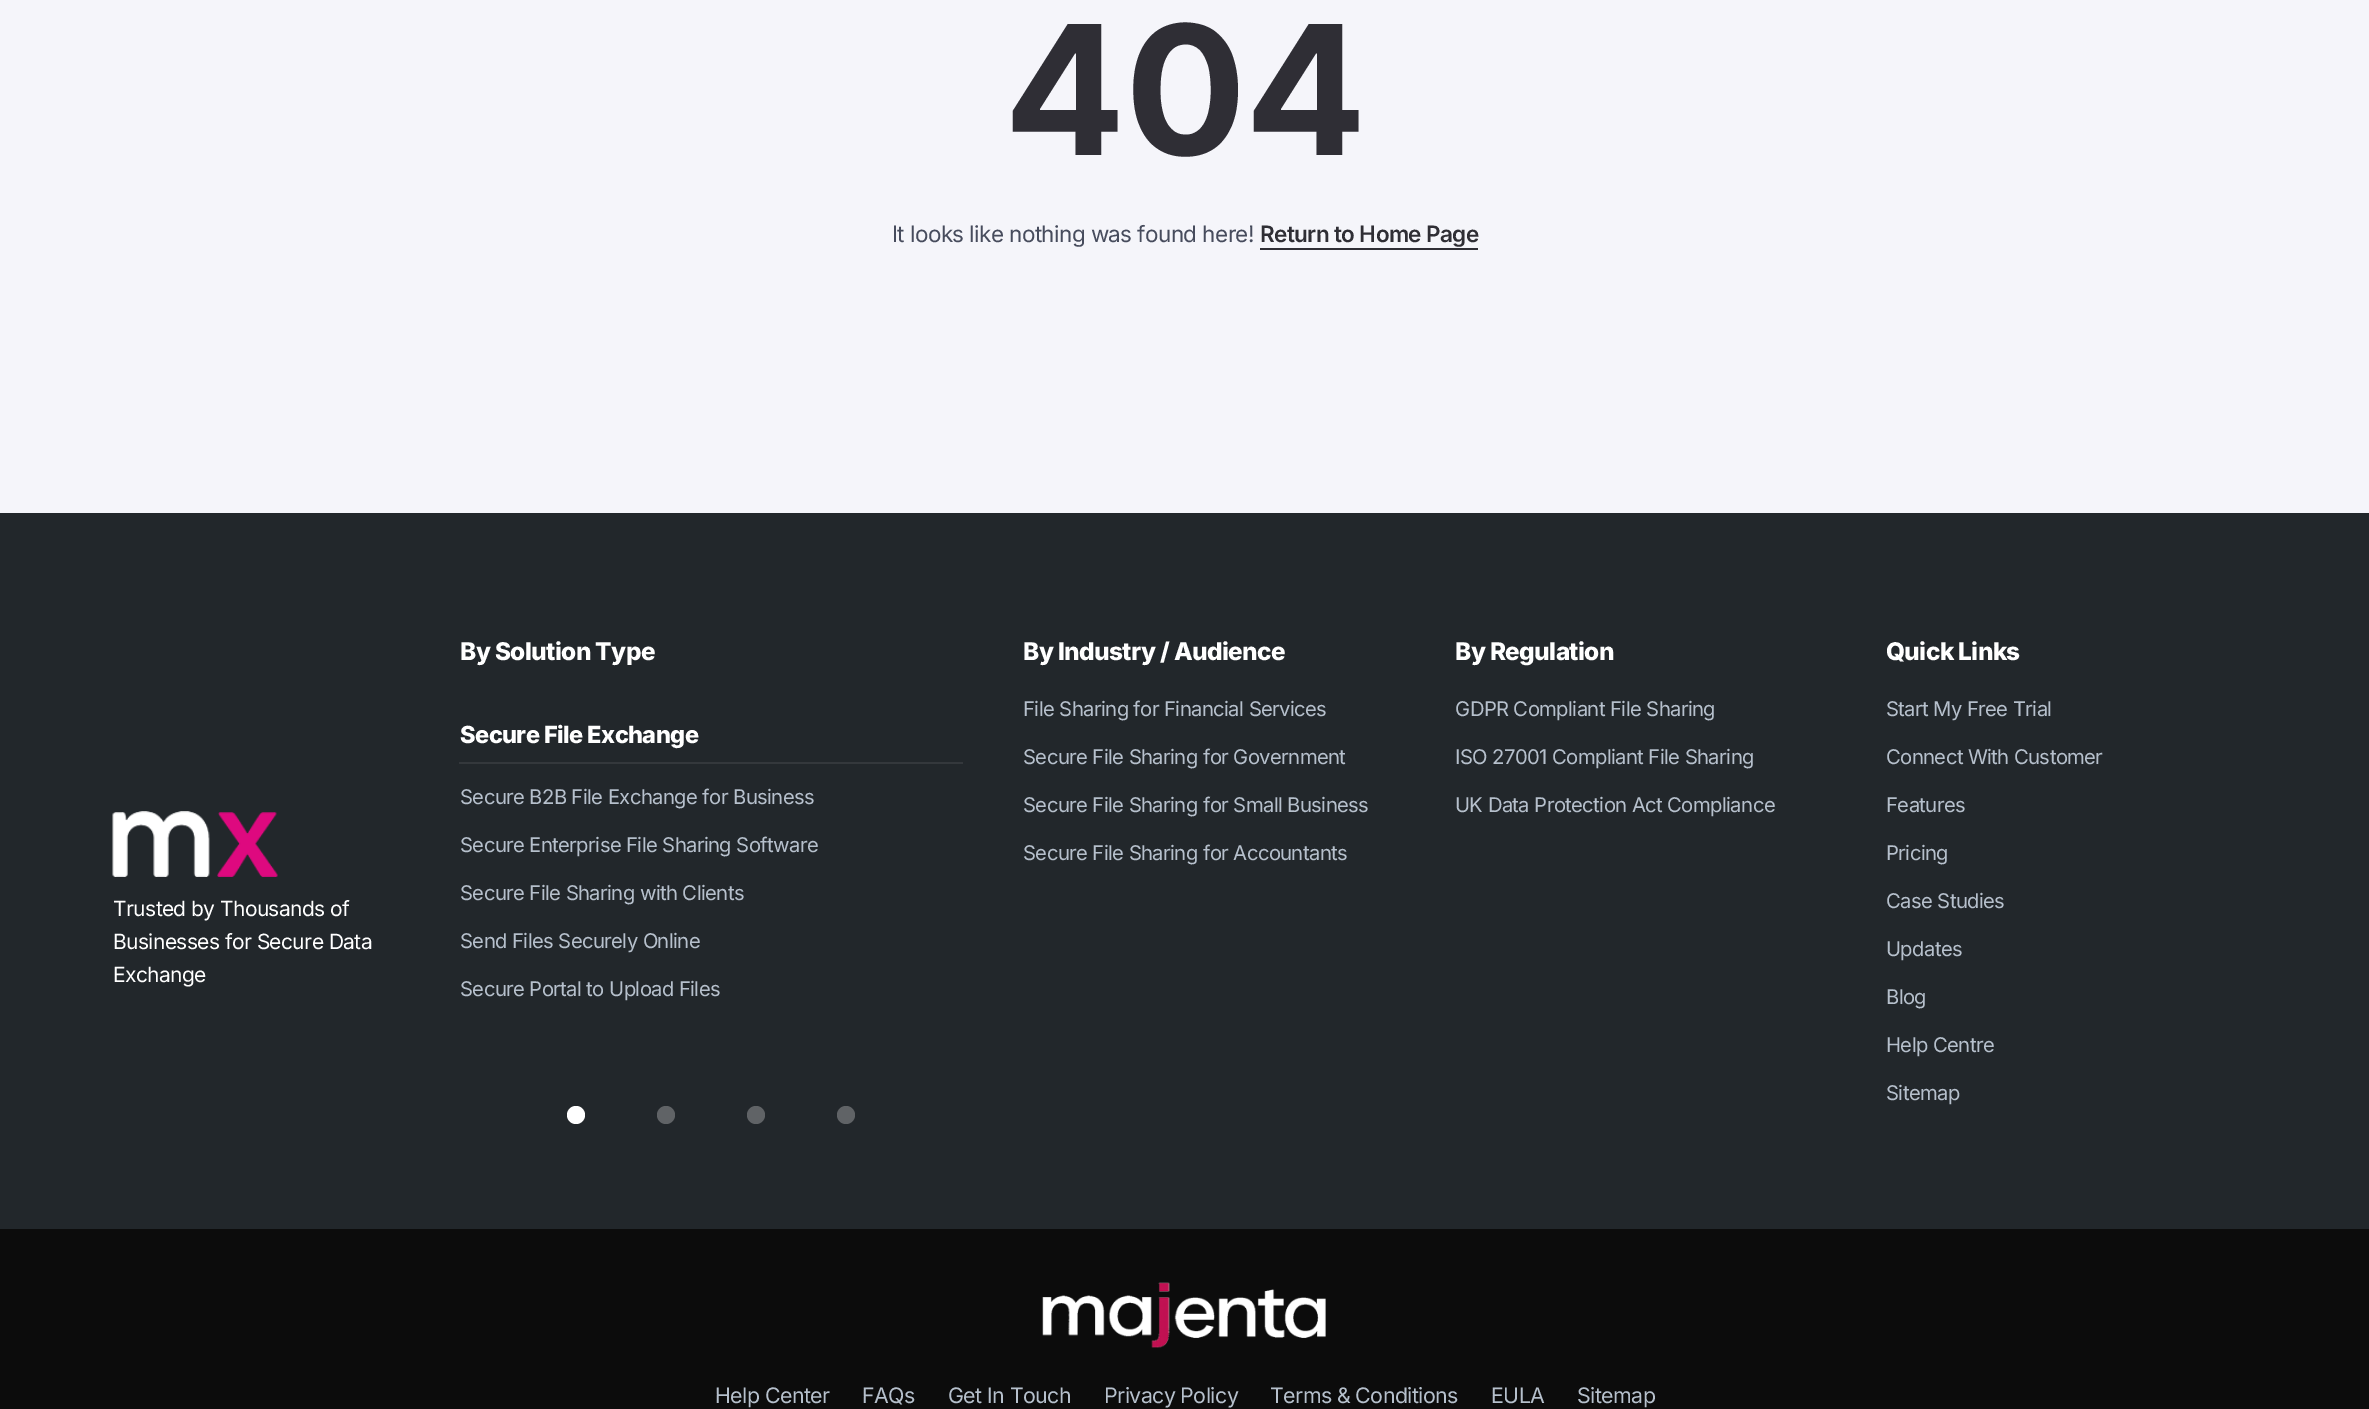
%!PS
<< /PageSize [2369 1409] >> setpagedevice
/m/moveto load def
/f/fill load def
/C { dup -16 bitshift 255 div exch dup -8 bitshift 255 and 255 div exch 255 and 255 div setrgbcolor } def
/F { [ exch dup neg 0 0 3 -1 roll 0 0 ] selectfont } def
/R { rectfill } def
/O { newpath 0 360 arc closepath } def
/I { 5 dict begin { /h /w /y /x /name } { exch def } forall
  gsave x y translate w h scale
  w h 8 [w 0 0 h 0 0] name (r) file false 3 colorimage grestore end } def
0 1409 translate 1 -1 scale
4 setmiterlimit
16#F5F5FA C
0 0 2369 1409 R
/Inter-Bold 180 F
16#2F2E35 C
1004 155 m -1 0 (404) ashow
/Inter-Regular 22.5 F
16#474C5D C
892 242 m -.6 0 (It looks like nothing was found here!) ashow
/Inter-SemiBold 22.5 F
16#2F2E35 C
1260 242 m -.6 0 (Return to Home Page) ashow
1260 248 218 2 R
16#22272B C
0 513 2369 716 R
(1.rgb) 112 811 166 66 I
/Inter-Regular 21 F
16#FFFFFF C
113 916 m -.6 0 (Trusted by Thousands of) ashow
113 949 m -.6 0 (Businesses for Secure Data) ashow
113 982 m -.6 0 (Exchange) ashow
/Inter-ExtraBold 24.4 F
460 660 m -.6 0 (By Solution Type) ashow
16#34383C C
459 762 504 2 R
/Inter-ExtraBold 23.6 F
16#FFFFFF C
460 743 m -.6 0 (Secure File Exchange) ashow
/Inter-Regular 20.25 F
16#B6C0CC C
460 804 m -.6 0 (Secure B2B File Exchange for Business) ashow
460 852 m -.6 0 (Secure Enterprise File Sharing Software) ashow
460 900 m -.6 0 (Secure File Sharing with Clients) ashow
460 948 m -.6 0 (Send Files Securely Online) ashow
460 996 m -.6 0 (Secure Portal to Upload Files) ashow
16#FFFFFF C
576 1115 9 O f
16#606366 C
666 1115 9 O f
756 1115 9 O f
846 1115 9 O f
/Inter-ExtraBold 24.4 F
16#FFFFFF C
1023 660 m -.6 0 (By Industry / Audience) ashow
/Inter-Regular 20.25 F
16#B6C0CC C
1023 716 m -.6 0 (File Sharing for Financial Services) ashow
1023 764 m -.6 0 (Secure File Sharing for Government) ashow
1023 812 m -.6 0 (Secure File Sharing for Small Business) ashow
1023 860 m -.6 0 (Secure File Sharing for Accountants) ashow
/Inter-ExtraBold 24.4 F
16#FFFFFF C
1455 660 m -.6 0 (By Regulation) ashow
/Inter-Regular 20.25 F
16#B6C0CC C
1455 716 m -.6 0 (GDPR Compliant File Sharing) ashow
1455 764 m -.6 0 (ISO 27001 Compliant File Sharing) ashow
1455 812 m -.6 0 (UK Data Protection Act Compliance) ashow
/Inter-ExtraBold 24.4 F
16#FFFFFF C
1886 660 m -.6 0 (Quick Links) ashow
/Inter-Regular 20.25 F
16#B6C0CC C
1886 716 m -.6 0 (Start My Free Trial) ashow
1886 764 m -.6 0 (Connect With Customer) ashow
1886 812 m -.6 0 (Features) ashow
1886 860 m -.6 0 (Pricing) ashow
1886 908 m -.6 0 (Case Studies) ashow
1886 956 m -.6 0 (Updates) ashow
1886 1004 m -.6 0 (Blog) ashow
1886 1052 m -.6 0 (Help Centre) ashow
1886 1100 m -.6 0 (Sitemap) ashow
16#0C0C0C C
0 1229 2369 180 R
(2.rgb) 1042 1282 284 66 I
/Inter-Regular 21.4 F
16#B6C0CC C
715 1403 m -.6 0 (Help Center) ashow
862 1403 m -.6 0 (FAQs) ashow
948 1403 m -.6 0 (Get In Touch) ashow
1104 1403 m -.6 0 (Privacy Policy) ashow
1270 1403 m -.6 0 (Terms & Conditions) ashow
1491 1403 m -.6 0 (EULA) ashow
1577 1403 m -.6 0 (Sitemap) ashow
showpage
